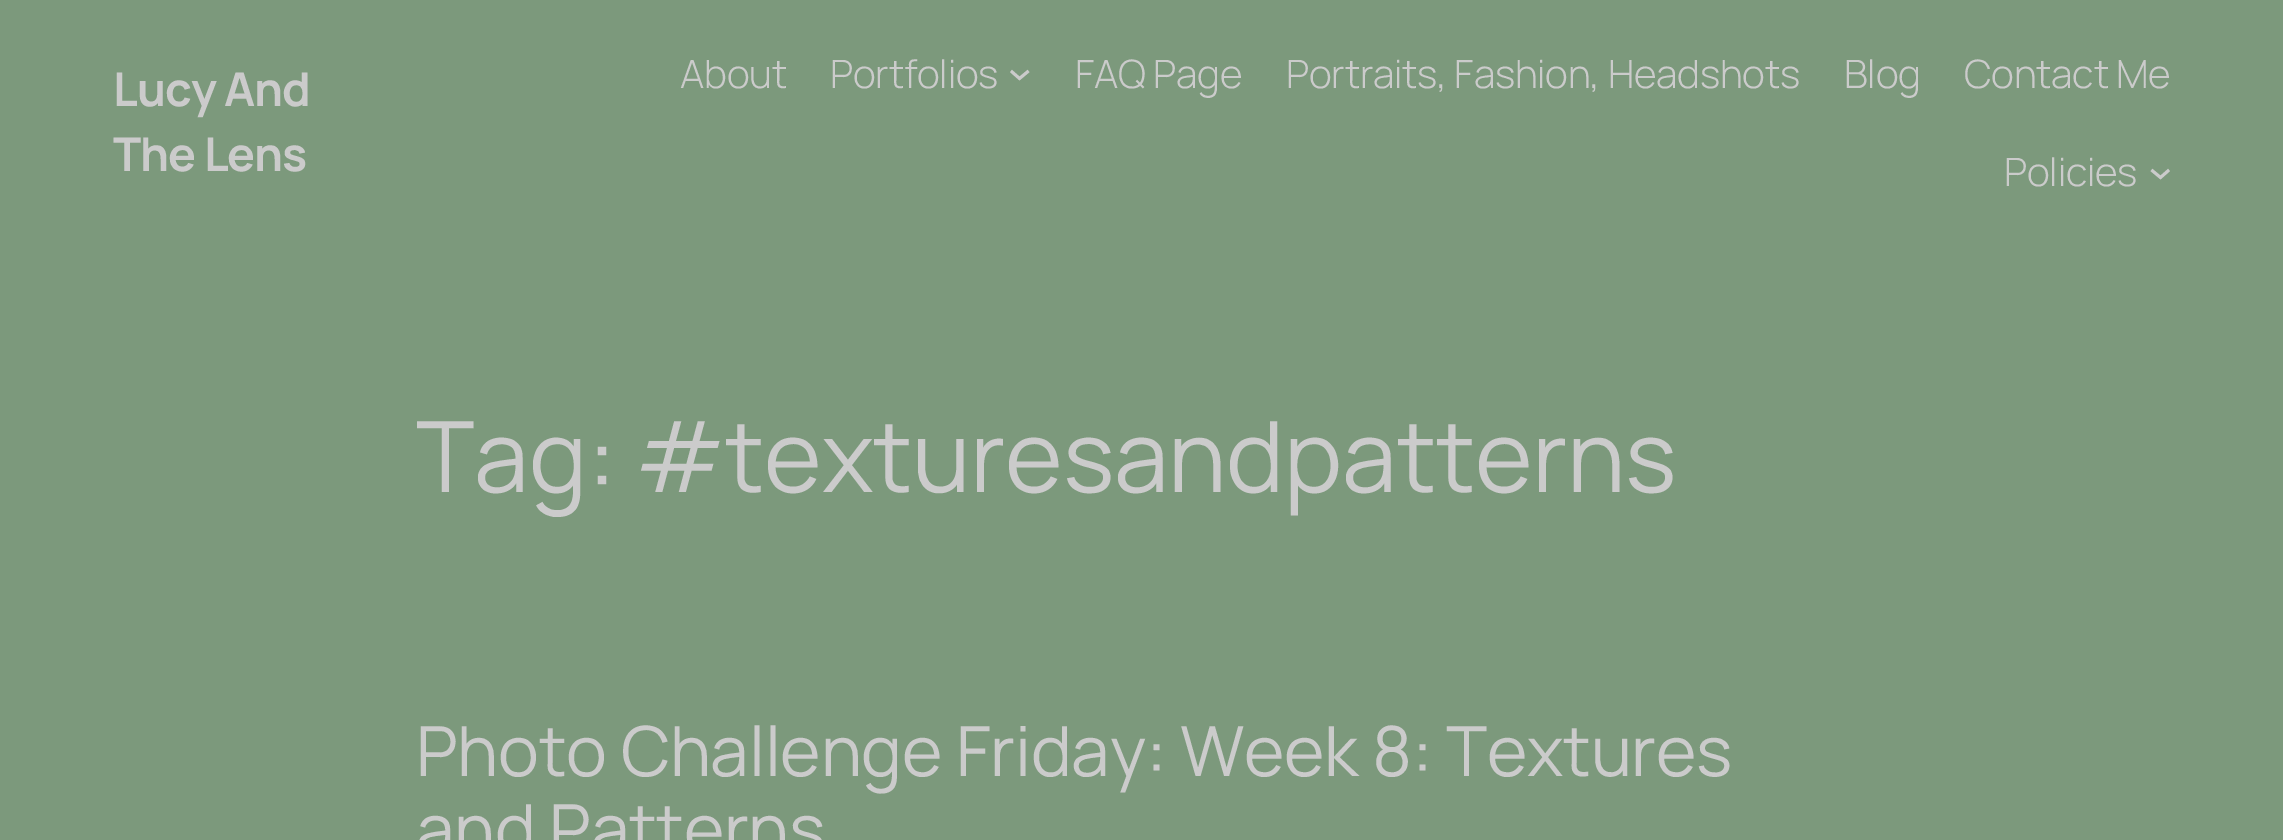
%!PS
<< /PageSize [2283 840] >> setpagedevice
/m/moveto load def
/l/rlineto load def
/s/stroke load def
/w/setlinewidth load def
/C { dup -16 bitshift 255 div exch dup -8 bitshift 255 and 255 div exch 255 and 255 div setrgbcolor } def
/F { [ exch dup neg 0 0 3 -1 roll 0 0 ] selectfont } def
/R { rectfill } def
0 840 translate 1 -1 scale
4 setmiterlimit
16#7C997C C
0 0 2283 840 R
/Manrope-Bold 46.5 F
16#CBCBCB C
113 106 m -1 0 (Lucy And) ashow
113 171 m -1 0 (The Lens) ashow
/Manrope-Light 39 F
680 88 m -.25 0 (About) ashow
830 88 m -.25 0 (Portfolios) ashow
2.9 w
1011 71 m 8.5 7.5 l 9 -7.5 l s
1075 88 m -.25 0 (FAQ Page) ashow
1286 88 m -.25 0 (Portraits, Fashion, Headshots) ashow
1844 88 m -.25 0 (Blog) ashow
1964 88 m -.25 0 (Contact Me) ashow
2004 186 m -.25 0 (Policies) ashow
2151.5 170 m 9 7.5 l 8.5 -7.5 l s
/Manrope-Regular 98.25 F
416 492 m -.25 0 (Tag: #texturesandpatterns) ashow
/Manrope-Regular 69.1 F
416 776 m -.25 0 (Photo Challenge Friday: Week 8: Textures) ashow
416 854 m -.25 0 (and Patterns) ashow
showpage
